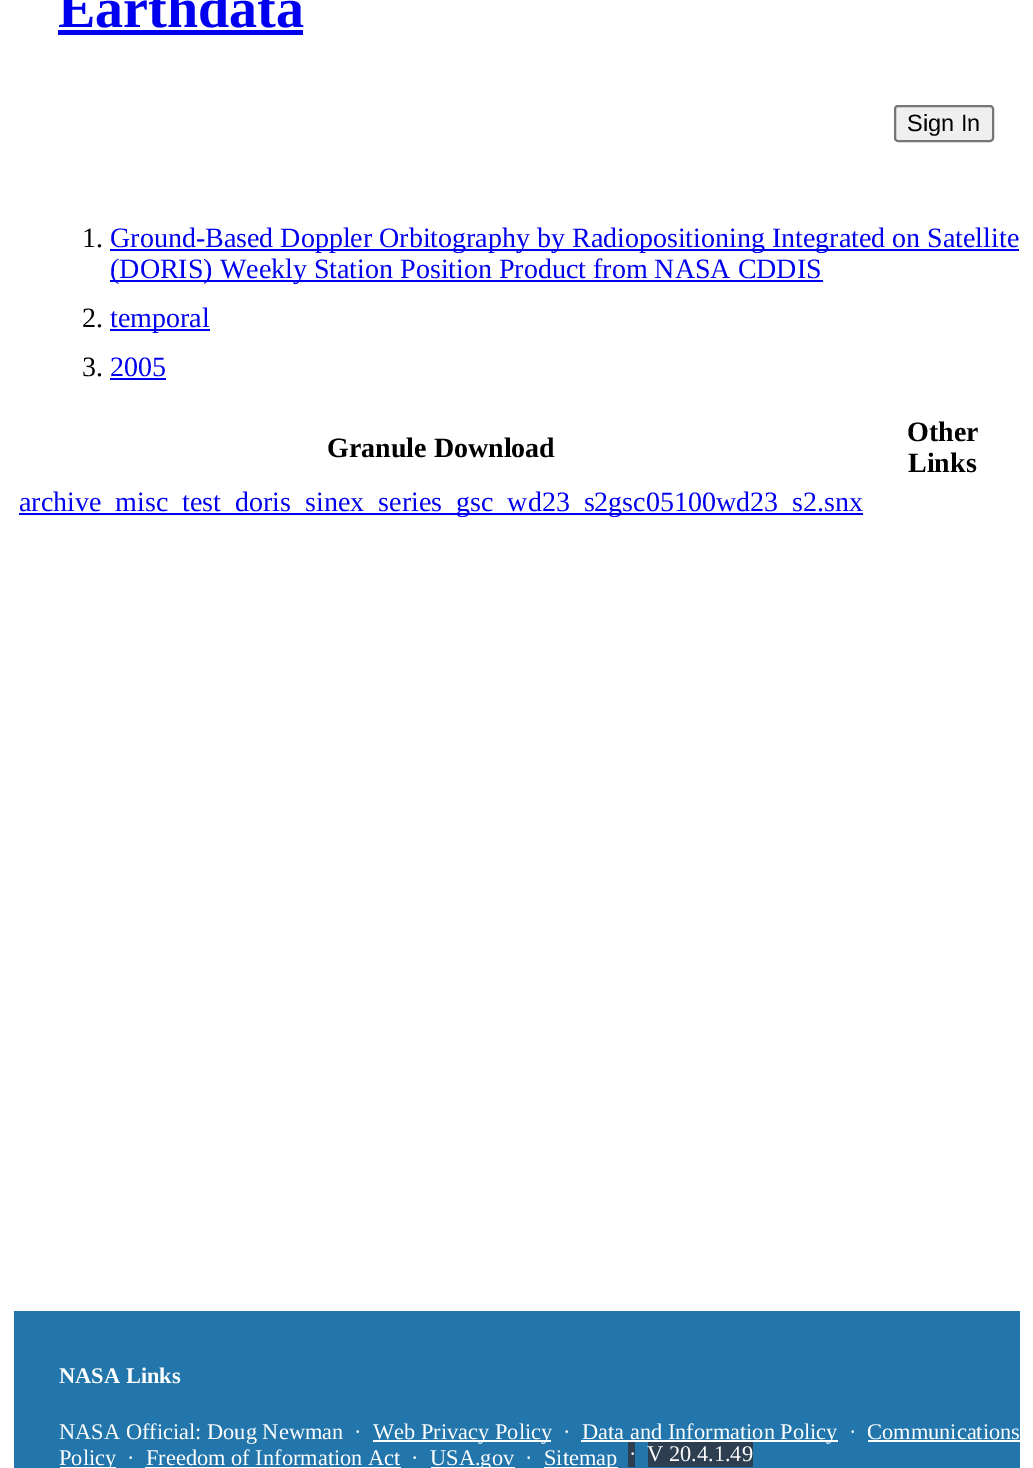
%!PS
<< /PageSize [1033 1468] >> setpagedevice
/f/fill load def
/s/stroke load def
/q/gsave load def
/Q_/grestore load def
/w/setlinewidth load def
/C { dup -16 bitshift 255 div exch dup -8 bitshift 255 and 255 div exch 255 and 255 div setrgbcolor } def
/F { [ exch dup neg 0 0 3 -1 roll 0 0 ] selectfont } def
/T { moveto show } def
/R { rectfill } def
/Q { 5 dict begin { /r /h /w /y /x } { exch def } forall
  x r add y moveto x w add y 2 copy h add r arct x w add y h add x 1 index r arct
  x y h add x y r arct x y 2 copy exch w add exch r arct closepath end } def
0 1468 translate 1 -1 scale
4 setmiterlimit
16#FFFFFF C
0 0 1033 1468 R
/LiberationSerif-Bold 56 F
16#0000EE C
(Earthdata) 58 27 T
58 30 245 5 R
16#EFEFEF C
895 106 98 35 3 Q q f Q_
16#767676 C
2 w
s
/LiberationSans-Regular 23.5 F
16#000000 C
(Sign In) 907 131 T
/LiberationSerif-Regular 28 F
(1.) 82 247 T
16#0000EE C
110 249 909 2 R
(Ground-Based Doppler Orbitography by Radiopositioning Integrated on Satellite) 110 247 T
110 280 713 2 R
(\(DORIS\) Weekly Station Position Product from NASA CDDIS) 110 278 T
16#000000 C
(2.) 82 327 T
16#0000EE C
110 329 100 2 R
(temporal) 110 327 T
16#000000 C
(3.) 82 376 T
16#0000EE C
(2005) 110 376 T
110 378 56 2 R
/LiberationSerif-Bold 28 F
16#000000 C
(Granule Download) 327 457 T
(Other) 907 441 T
(Links) 908 472 T
16#0000EE C
19 513 844 2 R
/LiberationSerif-Regular 28 F
(archive_misc_test_doris_sinex_series_gsc_wd23_s2gsc05100wd23_s2.snx) 19 511 T
16#2276AC C
14 1311 1006 157 R
/LiberationSerif-Bold 22.4 F
16#FFFFFF C
(NASA Links) 59 1383 T
/LiberationSerif-Regular 22.4 F
(NASA Official: Doug Newman) 59 1439 T
(·) 354 1439 T
373 1440 178 2 R
(Web Privacy Policy) 373 1439 T
(·) 563 1439 T
581 1440 257 2 R
(Data and Information Policy) 582 1439 T
(·) 849 1439 T
(Communications) 867 1439 T
868 1440 152 2 R
60 1467 56 1 R
(Policy) 59 1465 T
(Freedom of Information Act) 146 1465 T
145 1467 256 1 R
431 1467 84 1 R
(USA.gov) 430 1465 T
544 1467 74 1 R
(Sitemap) 544 1465 T
16#2C3E50 C
628 1442 7 25 R
16#FFFFFF C
(·) 629 1461 T
16#2C3E50 C
648 1442 105 25 R
16#FFFFFF C
(V 20.4.1.49) 647 1461 T
(·) 127 1465 T
(·) 411 1465 T
(·) 525 1465 T
showpage
